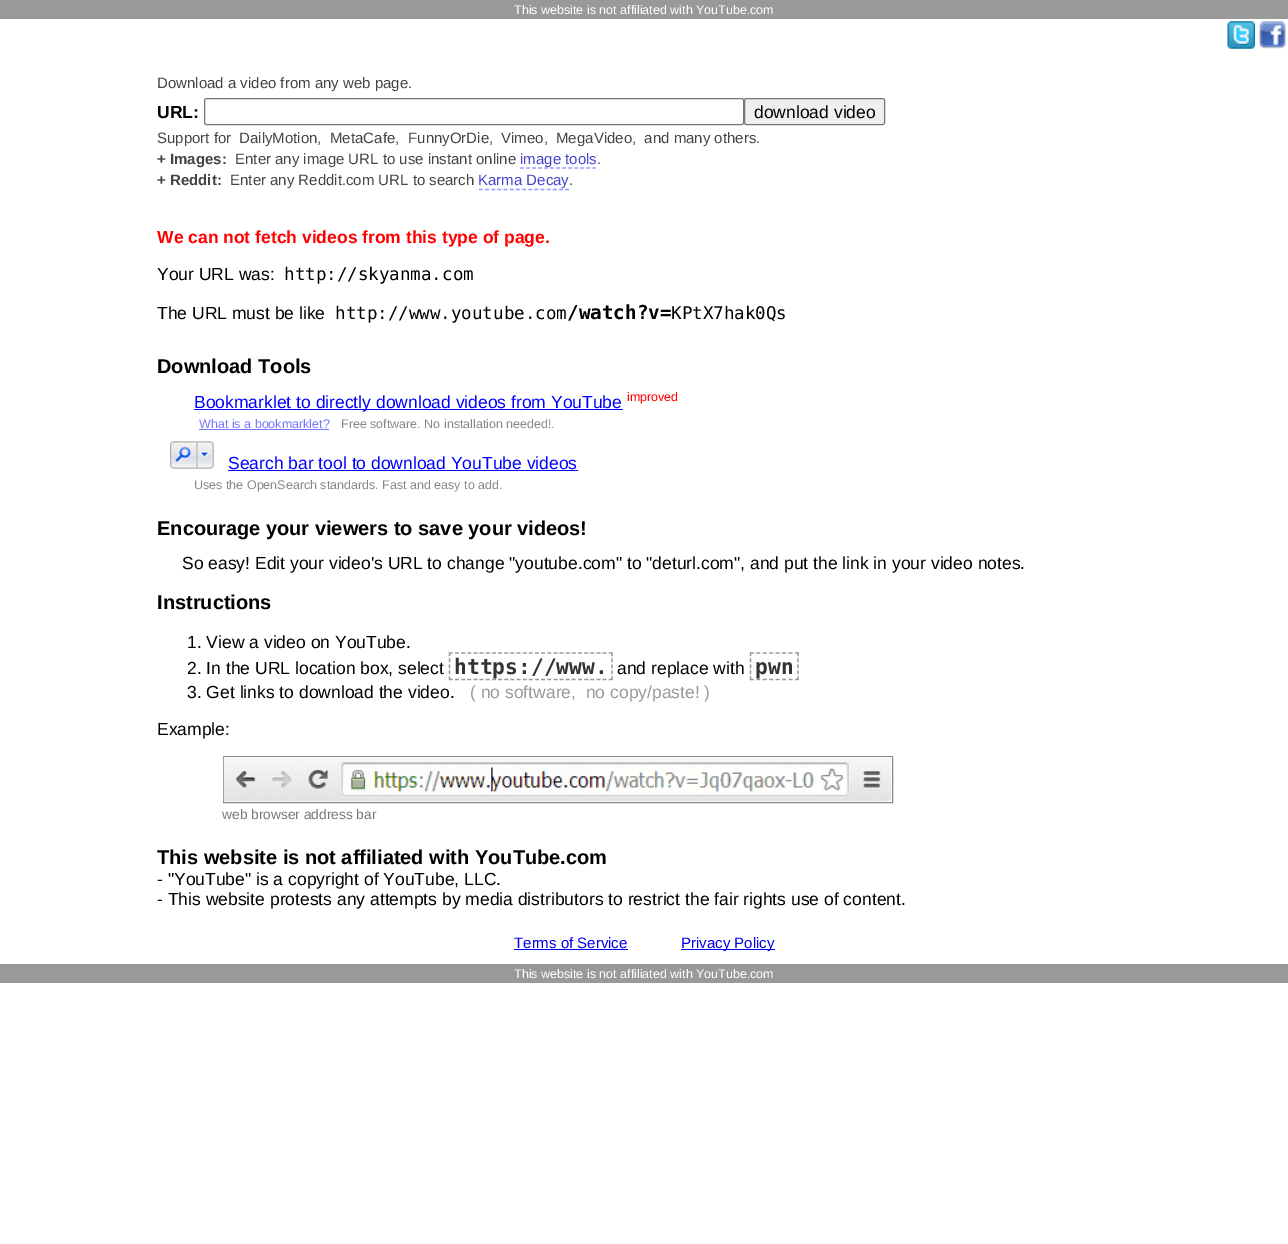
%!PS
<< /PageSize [1288 1244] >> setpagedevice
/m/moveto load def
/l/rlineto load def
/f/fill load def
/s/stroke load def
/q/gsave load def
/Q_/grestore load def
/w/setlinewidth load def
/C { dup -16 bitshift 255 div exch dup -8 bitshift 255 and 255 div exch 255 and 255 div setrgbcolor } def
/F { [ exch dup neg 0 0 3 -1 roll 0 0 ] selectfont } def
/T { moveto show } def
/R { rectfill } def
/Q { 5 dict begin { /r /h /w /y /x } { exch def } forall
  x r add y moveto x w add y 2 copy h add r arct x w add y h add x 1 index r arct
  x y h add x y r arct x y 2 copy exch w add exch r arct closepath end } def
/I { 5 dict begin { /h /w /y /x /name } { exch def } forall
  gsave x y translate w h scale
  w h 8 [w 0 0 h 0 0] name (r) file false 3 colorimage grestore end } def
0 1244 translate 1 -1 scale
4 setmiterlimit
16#FFFFFF C
0 0 1288 1244 R
16#999999 C
0 0 1288 19 R
/LiberationSans-Regular 12.5 F
16#FFFFFF C
(This website is not affiliated with YouTube.com) 514 14 T
(1.rgb) 1227 21 28 28 I
(2.rgb) 1258 21 29 28 I
/LiberationSans-Regular 15 F
16#444444 C
(Download a video from any web page.) 157 88 T
/LiberationSans-Bold 17.5 F
16#000000 C
(URL:) 157 118 T
16#767676 C
204.5 98.5 539 26 2 Q s
16#EFEFEF C
744.5 98.5 140 26 2 Q q f Q_
16#767676 C
s
/LiberationSans-Regular 17.5 F
16#000000 C
(download video) 754 118 T
/LiberationSans-Regular 15 F
16#444444 C
(Support for) 157 143 T
(DailyMotion,) 239 143 T
(MetaCafe,) 330 143 T
(FunnyOrDie,) 408 143 T
(Vimeo,) 501 143 T
(MegaVideo,  and many others.) 556 143 T
/LiberationSans-Bold 15 F
(+ Images:) 157 164 T
/LiberationSans-Regular 15 F
(Enter any image URL to use instant online) 235 164 T
16#9999FF C
1.2 w
[3.75 2.29] 0 setdash
520 168 m 76 0 l s
16#4444CC C
(image tools) 520 164 T
16#444444 C
(.) 597 164 T
/LiberationSans-Bold 15 F
(+ Reddit:) 157 185 T
/LiberationSans-Regular 15 F
(Enter any Reddit.com URL to search) 230 185 T
16#9999FF C
[3.75 2.41] 0 setdash
479 189.5 m 90 0 l s
16#4444CC C
(Karma Decay) 478 185 T
16#444444 C
(.) 569 185 T
/LiberationSans-Bold 17.5 F
16#FF0000 C
(We can not fetch videos from this type of page.) 157 243 T
/LiberationSans-Regular 17.5 F
16#000000 C
(Your URL was:) 157 280 T
/DejaVuSansMono-Regular 17.5 F
(http://skyanma.com) 284 280 T
/LiberationSans-Regular 17.5 F
(The URL must be like) 157 319 T
/DejaVuSansMono-Regular 17.5 F
(http://www.youtube.com) 335 319 T
/DejaVuSansMono-Bold 19.25 F
(/watch?v=) 567 319 T
/DejaVuSansMono-Regular 17.5 F
(KPtX7hak0Qs) 671 319 T
/LiberationSans-Bold 20 F
(Download Tools) 157 373 T
16#0000FF C
194 409 429 1 R
/LiberationSans-Regular 17.5 F
(Bookmarklet to directly download videos from YouTube) 194 408 T
/LiberationSans-Regular 12.5 F
16#FF0000 C
(improved) 627 401 T
16#7777FF C
(What is a bookmarklet?) 199 428 T
199 429 130 1 R
16#888888 C
(Free software. No installation needed!.) 341 428 T
(3.rgb) 170 441 44 28 I
/LiberationSans-Regular 17.5 F
16#0000FF C
(Search bar tool to download YouTube videos) 228 469 T
228 470 350 1 R
/LiberationSans-Regular 12.5 F
16#888888 C
(Uses the OpenSearch standards. Fast and easy to add.) 194 489 T
/LiberationSans-Bold 20 F
16#000000 C
(Encourage your viewers to save your videos!) 157 535 T
/LiberationSans-Regular 17.5 F
(So easy! Edit your video's URL to change "youtube.com" to "deturl.com", and put the link in your video notes.) 182 569 T
/LiberationSans-Bold 20 F
(Instructions) 157 609 T
/LiberationSans-Regular 17.5 F
(1. View a video on YouTube.) 187 648 T
(2. In the URL location box, select) 187 674 T
16#999999 C
[3.75 2.4] 0 setdash
449 653 m 163.5 0 l s
[3.75 2.19] 0 setdash
612 652.5 m 0 27.5 l s
[3.75 2.4] 0 setdash
449 679.5 m 163.5 0 l s
/DejaVuSansMono-Bold 21.25 F
16#333333 C
(https://www.) 454 674 T
16#999999 C
[3.75 2.19] 0 setdash
449.5 652.5 m 0 27.5 l s
/LiberationSans-Regular 17.5 F
16#000000 C
(and replace with) 617 674 T
16#999999 C
[3.75 2.68] 0 setdash
750 653 m 49 0 l s
[3.75 2.19] 0 setdash
798 652.5 m 0 27.5 l s
[3.75 2.68] 0 setdash
750 679.5 m 49 0 l s
/DejaVuSansMono-Bold 21.25 F
16#333333 C
(pwn) 755 674 T
16#999999 C
[3.75 2.19] 0 setdash
750.5 652.5 m 0 27.5 l s
/LiberationSans-Regular 17.5 F
16#000000 C
(3. Get links to download the video.) 187 698 T
16#999999 C
(\( no software,  no copy/paste! \)) 470 698 T
16#000000 C
(Example:) 157 735 T
16#888888 C
1 w
[] 0 setdash
223.5 756.5 669 46 rectstroke
(4.rgb) 223 757 669 45 I
/LiberationSans-Regular 13.75 F
16#777777 C
(web browser address bar) 222 819 T
/LiberationSans-Bold 20 F
16#000000 C
(This website is not affiliated with YouTube.com) 157 864 T
/LiberationSans-Regular 17.5 F
(- "YouTube" is a copyright of YouTube, LLC.) 157 885 T
(- This website protests any attempts by media distributors to restrict the fair rights use of content.) 157 905 T
/LiberationSans-Regular 15 F
16#0000EE C
(Terms of Service) 514 948 T
514 949 114 1 R
681 949 94 1 R
(Privacy Policy) 681 948 T
16#999999 C
0 964 1288 19 R
/LiberationSans-Regular 12.5 F
16#FFFFFF C
(This website is not affiliated with YouTube.com) 514 978 T
showpage
